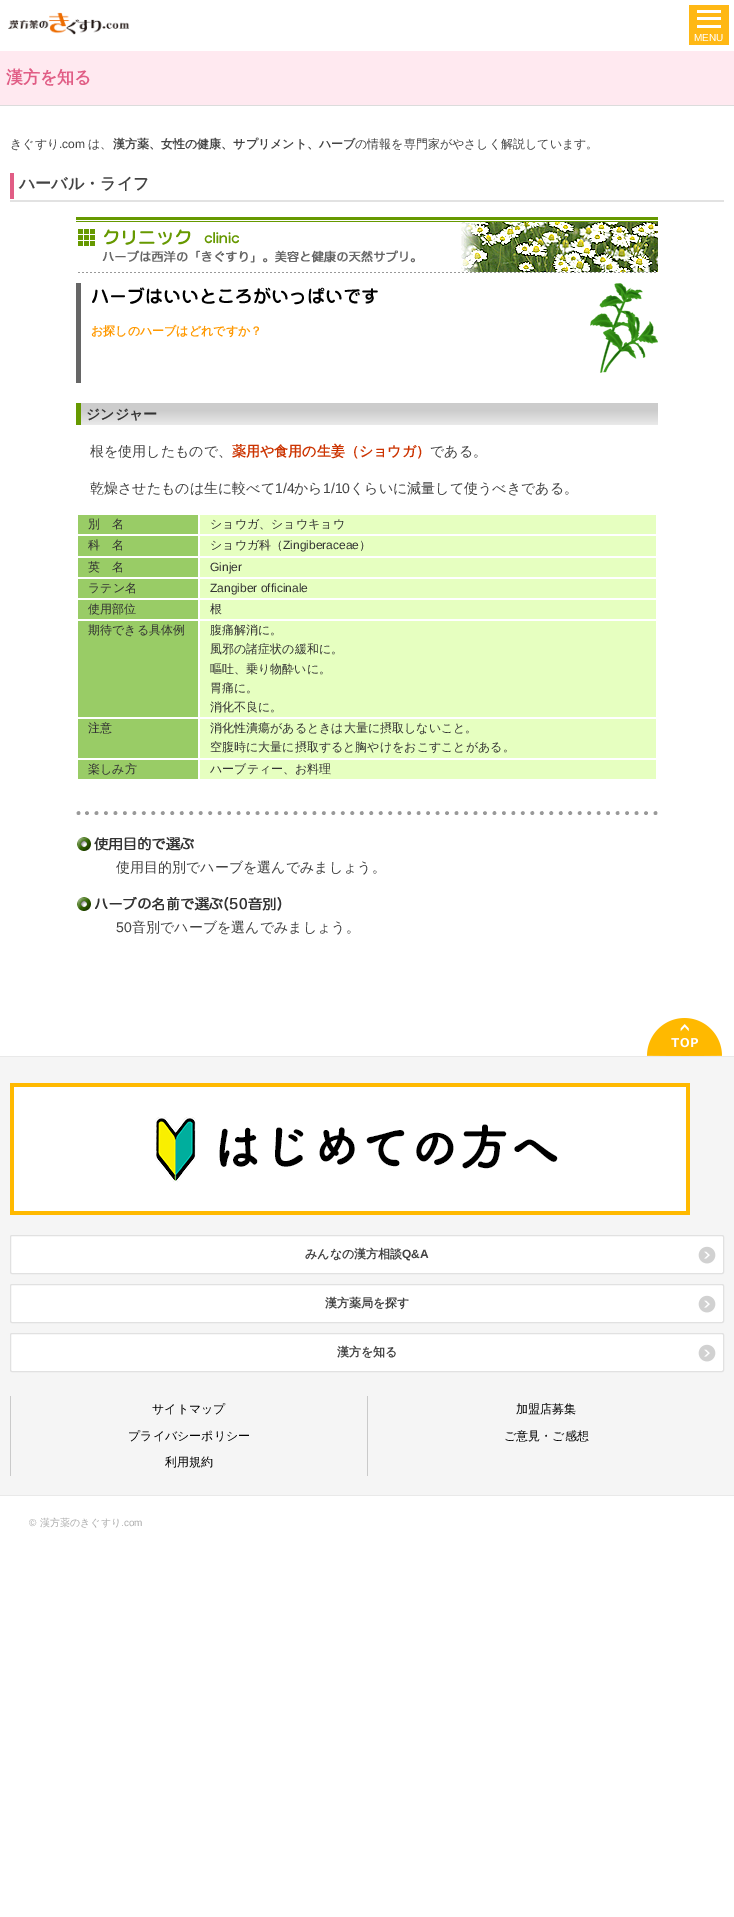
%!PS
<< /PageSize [734 1917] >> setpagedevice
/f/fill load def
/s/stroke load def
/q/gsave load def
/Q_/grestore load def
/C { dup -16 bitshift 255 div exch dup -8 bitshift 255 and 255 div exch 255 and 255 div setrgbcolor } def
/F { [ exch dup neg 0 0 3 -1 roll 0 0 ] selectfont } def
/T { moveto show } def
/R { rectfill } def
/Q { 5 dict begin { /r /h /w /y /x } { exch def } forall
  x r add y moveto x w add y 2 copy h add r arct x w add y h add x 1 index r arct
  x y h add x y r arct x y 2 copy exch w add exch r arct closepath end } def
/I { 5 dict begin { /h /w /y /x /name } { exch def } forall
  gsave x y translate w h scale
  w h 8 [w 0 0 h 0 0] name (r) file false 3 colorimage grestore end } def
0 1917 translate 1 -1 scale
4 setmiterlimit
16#FFFFFF C
0 0 734 1917 R
(1.rgb) 8 12 122 23 I
16#FFB814 C
689 5 40 40 R
16#FFFFFF C
697 17 24 3 R
697 10 24 3 R
697 25 24 3 R
/LiberationSans-Regular 10 F
(MENU) 694 41 T
16#FFE9F0 C
0 51 734 54 R
16#DCDCDC C
0 105 734 1 R
/WenQuanYiZenHei-Bold 17 F
16#E15D85 C
(漢方を知る) 6 83 T
/WenQuanYiZenHei-Medium 12 F
16#434343 C
(きぐすり) 10 148 T
/LiberationSans-Regular 12 F
(.com) 59 148 T
/WenQuanYiZenHei-Medium 12 F
(は、) 88 148 T
/WenQuanYiZenHei-Bold 12 F
(漢方薬、女性の健康、サプリメント、ハーブ) 113 148 T
/WenQuanYiZenHei-Medium 12 F
(の情報を専門家がやさしく解説しています。) 355 148 T
16#E2E2E2 C
10 200 714 2 R
16#E15D85 C
10 173 4 26 R
/WenQuanYiZenHei-Bold 16 F
16#434343 C
(ハーバル・ライフ) 19 189 T
(2.rgb) 76 217 582 56 I
(3.rgb) 590 283 68 90 I
16#666666 C
76 283 5 100 R
(4.rgb) 92 287 286 18 I
/WenQuanYiZenHei-Bold 12 F
16#FF9900 C
(お探しのハーブはどれですか？) 91 335 T
(5.rgb) 81 403 577 22 I
16#669900 C
76 403 5 22 R
/WenQuanYiZenHei-Bold 14 F
16#333333 C
(ジンジャー) 86 419 T
/WenQuanYiZenHei-Medium 14 F
16#434343 C
(根を使用したもので、) 90 456 T
/WenQuanYiZenHei-Bold 14 F
16#CC3300 C
(薬用や食用の生姜（ショウガ）) 232 456 T
/WenQuanYiZenHei-Medium 14 F
16#434343 C
(である。) 430 456 T
(乾燥させたものは生に較べて) 90 493 T
/LiberationSans-Regular 14 F
(1/4) 275 493 T
/WenQuanYiZenHei-Medium 14 F
(から) 294 493 T
/LiberationSans-Regular 14 F
(1/10) 323 493 T
/WenQuanYiZenHei-Medium 14 F
(くらいに減量して使うべきである。) 350 493 T
16#99CC66 C
78 515 120 19 R
/WenQuanYiZenHei-Medium 12 F
16#333333 C
(別　名) 88 528 T
16#E6FFC0 C
200 515 456 19 R
16#333333 C
(ショウガ、ショウキョウ) 210 528 T
16#99CC66 C
78 536 120 20 R
16#333333 C
(科　名) 88 549 T
16#E6FFC0 C
200 536 456 20 R
16#333333 C
(ショウガ科（) 210 549 T
/LiberationSans-Regular 12 F
(Zingiberaceae) 283 549 T
/WenQuanYiZenHei-Medium 12 F
(）) 359 549 T
16#99CC66 C
78 558 120 19 R
16#333333 C
(英　名) 88 571 T
16#E6FFC0 C
200 558 456 19 R
/LiberationSans-Regular 12 F
16#333333 C
(Ginjer) 210 571 T
16#99CC66 C
78 579 120 19 R
/WenQuanYiZenHei-Medium 12 F
16#333333 C
(ラテン名) 88 592 T
16#E6FFC0 C
200 579 456 19 R
/LiberationSans-Regular 12 F
16#333333 C
(Zangiber officinale) 210 592 T
16#99CC66 C
78 600 120 19 R
/WenQuanYiZenHei-Medium 12 F
16#333333 C
(使用部位) 88 613 T
16#E6FFC0 C
200 600 456 19 R
16#333333 C
(根) 210 613 T
16#99CC66 C
78 621 120 96 R
16#333333 C
(期待できる具体例) 88 634 T
16#E6FFC0 C
200 621 456 96 R
16#333333 C
(腹痛解消に。) 210 634 T
(風邪の諸症状の緩和に。) 210 653 T
(嘔吐、乗り物酔いに。) 210 673 T
(胃痛に。) 210 692 T
(消化不良に。) 210 711 T
16#99CC66 C
78 719 120 39 R
16#333333 C
(注意) 88 732 T
16#E6FFC0 C
200 719 456 39 R
16#333333 C
(消化性潰瘍があるときは大量に摂取しないこと。) 210 732 T
(空腹時に大量に摂取すると胸やけをおこすことがある。) 210 751 T
16#99CC66 C
78 760 120 19 R
16#333333 C
(楽しみ方) 88 773 T
16#E6FFC0 C
200 760 456 19 R
16#333333 C
(ハーブティー、お料理) 210 773 T
(6.rgb) 76 811 582 4 I
(7.rgb) 77 837 117 14 I
/WenQuanYiZenHei-Medium 14 F
16#434343 C
(使用目的別でハーブを選んでみましょう。) 116 872 T
(8.rgb) 77 897 205 14 I
/LiberationSans-Regular 14 F
(50) 116 932 T
/WenQuanYiZenHei-Medium 14 F
(音別でハーブを選んでみましょう。) 132 932 T
(9.rgb) 647 1018 75 38 I
16#F5F5F5 C
0 1057 734 438 R
16#E9E9E9 C
0 1056 734 1 R
0 1495 734 1 R
(10.rgb) 10 1083 680 132 I
16#FFFFFF C
10.5 1235.5 713 38 1.5 Q q f Q_
16#E1E1E1 C
s
/WenQuanYiZenHei-Bold 12 F
16#434343 C
(みんなの漢方相談) 305 1258 T
/LiberationSans-Bold 12 F
(Q&A) 402 1258 T
(11.rgb) 698 1246 18 18 I
16#FFFFFF C
10.5 1284.5 713 38 1.5 Q q f Q_
16#E1E1E1 C
s
/WenQuanYiZenHei-Bold 12 F
16#434343 C
(漢方薬局を探す) 325 1307 T
(11.rgb) 698 1295 18 18 I
16#FFFFFF C
10.5 1333.5 713 38 1.5 Q q f Q_
16#E1E1E1 C
s
16#434343 C
(漢方を知る) 337 1356 T
(11.rgb) 698 1344 18 18 I
16#CACACA C
10 1396 1 80 R
/WenQuanYiZenHei-Medium 12 F
16#000000 C
(サイトマップ) 152 1413 T
(プライバシーポリシー) 128 1440 T
(利用規約) 165 1466 T
16#CACACA C
367 1396 1 80 R
16#000000 C
(加盟店募集) 516 1413 T
(ご意見・ご感想) 504 1440 T
/LiberationSans-Regular 10 F
16#ADADAD C
(©) 29 1526 T
/WenQuanYiZenHei-Medium 10 F
(漢方薬のきぐすり) 40 1526 T
/LiberationSans-Regular 10 F
(.com) 121 1526 T
showpage
